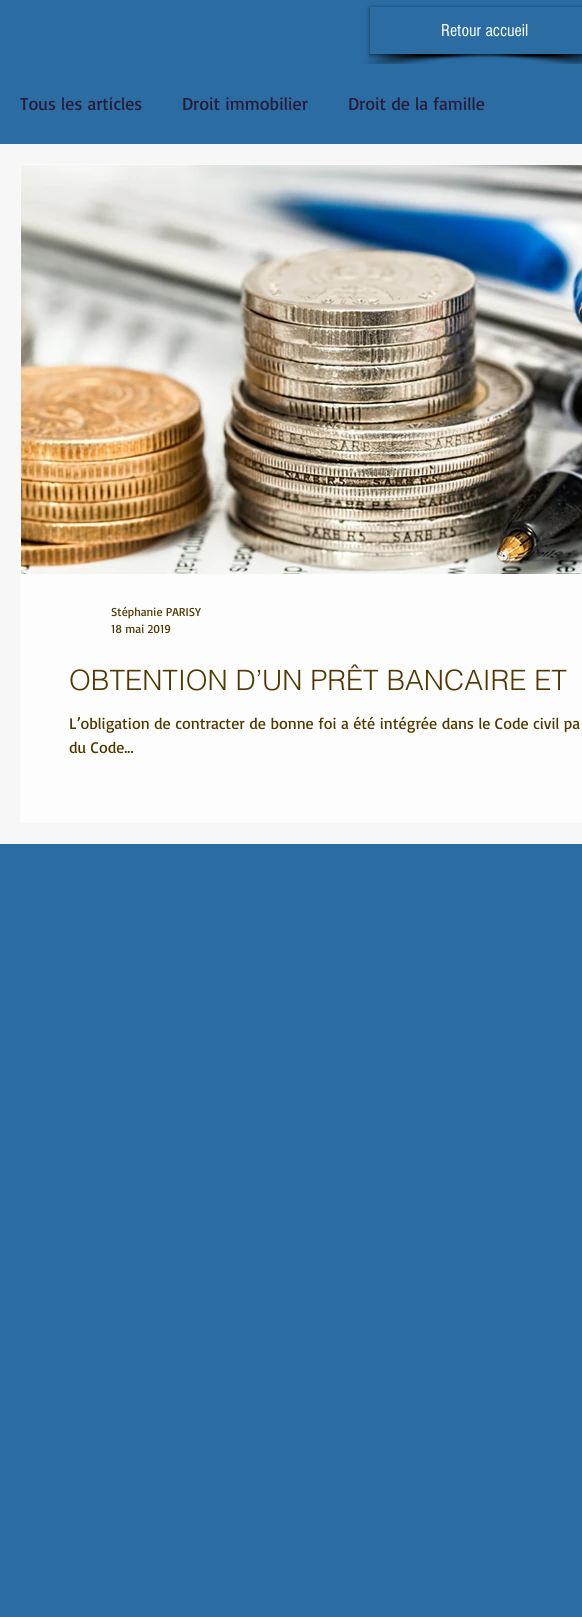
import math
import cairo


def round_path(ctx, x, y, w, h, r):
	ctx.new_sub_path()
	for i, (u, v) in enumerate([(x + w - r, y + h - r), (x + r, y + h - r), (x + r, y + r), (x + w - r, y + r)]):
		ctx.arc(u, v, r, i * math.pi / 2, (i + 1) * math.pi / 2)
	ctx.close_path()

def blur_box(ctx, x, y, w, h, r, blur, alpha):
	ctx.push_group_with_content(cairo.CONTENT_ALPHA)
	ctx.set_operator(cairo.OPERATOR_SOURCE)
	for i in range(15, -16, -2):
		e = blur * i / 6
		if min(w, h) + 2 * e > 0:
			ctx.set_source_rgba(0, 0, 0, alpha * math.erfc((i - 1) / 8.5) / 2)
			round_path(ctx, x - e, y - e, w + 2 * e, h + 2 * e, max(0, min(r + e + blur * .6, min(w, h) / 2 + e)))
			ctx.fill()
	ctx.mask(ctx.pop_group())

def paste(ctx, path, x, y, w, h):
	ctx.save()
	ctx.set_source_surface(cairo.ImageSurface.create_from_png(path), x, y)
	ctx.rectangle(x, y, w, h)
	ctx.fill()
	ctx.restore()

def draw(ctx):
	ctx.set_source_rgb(0.169, 0.424, 0.639)
	ctx.paint()
	paste(ctx, 'media/1.png', 362, 54, 148, 10)
	paste(ctx, 'media/2.png', 469, 54, 113, 10)
	ctx.save()
	ctx.set_fill_rule(cairo.FILL_RULE_EVEN_ODD)
	ctx.new_path()
	ctx.move_to(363, 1)
	ctx.line_to(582, 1)
	ctx.line_to(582, 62)
	ctx.line_to(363, 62)
	ctx.close_path()
	ctx.move_to(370, 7)
	ctx.line_to(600, 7)
	ctx.line_to(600, 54)
	ctx.line_to(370, 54)
	ctx.close_path()
	ctx.clip()
	ctx.set_source_rgb(0, 0, 0)
	blur_box(ctx, 370, 8, 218, 47, 0, 2, 0.6)
	ctx.restore()
	ctx.select_font_face('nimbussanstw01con')
	ctx.set_font_size(18)
	ctx.set_source_rgb(1, 1, 1)
	ctx.move_to(441, 36)
	ctx.show_text('Retour accueil')
	ctx.set_source_rgb(0.965, 0.965, 0.965)
	ctx.rectangle(0, 144, 582, 700)
	ctx.fill()
	ctx.select_font_face('Basic')
	ctx.set_source_rgb(0.157, 0.102, 0.224)
	for x, y, s in [
		(20, 110, 'Tous les articles'),
		(182, 110, 'Droit immobilier'),
		(348, 110, 'Droit de la famille'),
	]:
		ctx.move_to(x, y)
		ctx.show_text(s)
	ctx.rectangle(20.5, 164.5, 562, 658)
	ctx.set_source_rgb(0.988, 0.984, 0.984)
	ctx.set_line_width(1)
	ctx.stroke()
	paste(ctx, 'media/3.png', 21, 165, 561, 409)
	ctx.set_source_rgb(0.996, 0.992, 0.992)
	ctx.rectangle(21, 574, 561, 248)
	ctx.fill()
	ctx.set_font_size(12)
	ctx.set_source_rgb(0.31, 0.224, 0)
	ctx.move_to(111, 616)
	ctx.show_text('Stéphanie PARISY')
	ctx.move_to(111, 633)
	ctx.show_text('18 mai 2019')
	ctx.select_font_face('helvetica Light')
	ctx.set_font_size(28)
	ctx.move_to(69, 690)
	ctx.show_text('OBTENTION D’UN PRÊT BANCAIRE ET')
	ctx.select_font_face('Basic')
	ctx.set_font_size(16)
	ctx.move_to(69, 729)
	ctx.show_text('L’obligation de contracter de bonne foi a été intégrée dans le Code civil pa')
	ctx.move_to(69, 753)
	ctx.show_text('du Code...')


surface = cairo.ImageSurface(cairo.FORMAT_RGB24, 582, 1617)
ctx = cairo.Context(surface)
options = cairo.FontOptions()
options.set_hint_metrics(cairo.HINT_METRICS_OFF)
options.set_hint_style(cairo.HINT_STYLE_NONE)
ctx.set_font_options(options)
ctx.set_miter_limit(4)
draw(ctx)
surface.write_to_png('image.png')
